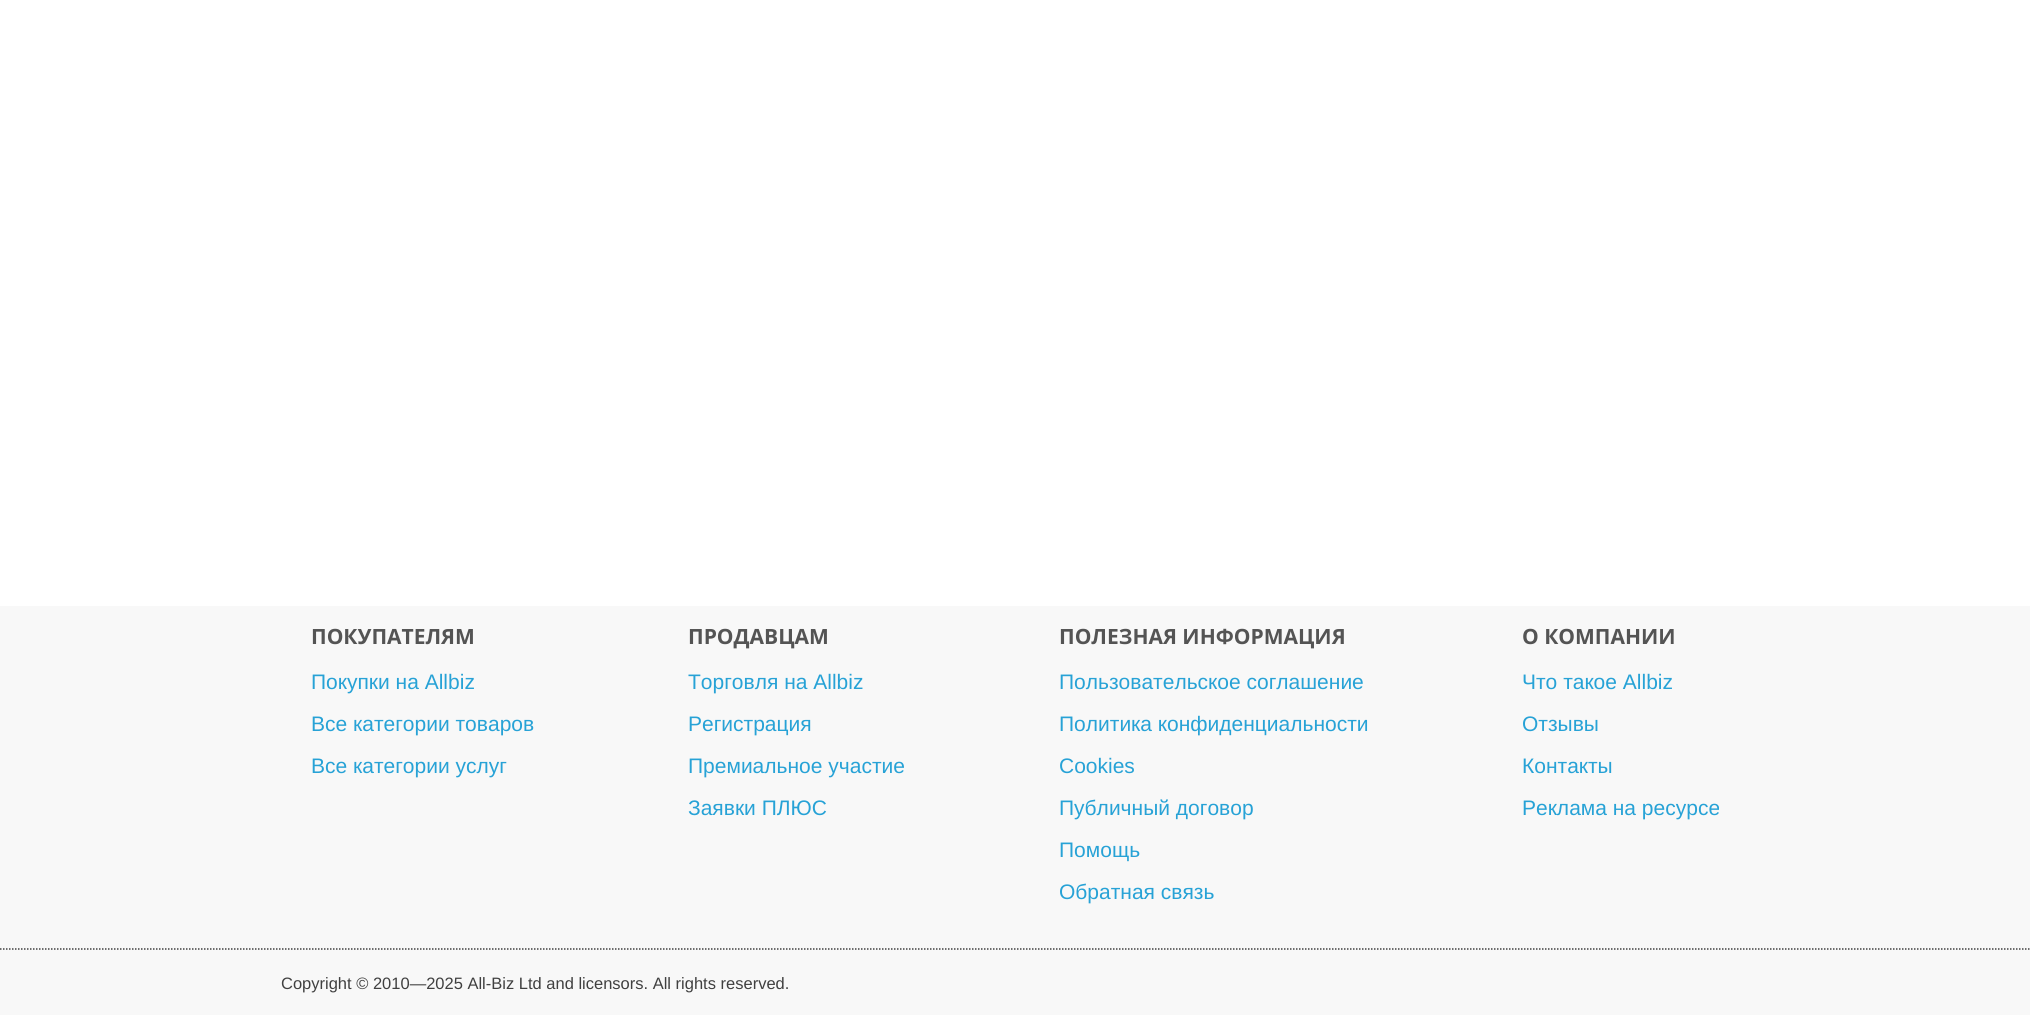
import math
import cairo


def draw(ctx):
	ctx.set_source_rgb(1, 1, 1)
	ctx.paint()
	ctx.set_source_rgb(0.969, 0.969, 0.969)
	ctx.rectangle(0, 606, 2030, 409)
	ctx.fill()
	ctx.select_font_face('Open Sans', cairo.FONT_SLANT_NORMAL, cairo.FONT_WEIGHT_BOLD)
	ctx.set_font_size(21)
	ctx.set_source_rgb(0.329, 0.329, 0.329)
	ctx.move_to(311, 644)
	ctx.show_text('ПОКУПАТЕЛЯМ')
	ctx.select_font_face('Liberation Sans')
	ctx.set_source_rgb(0.153, 0.635, 0.839)
	for x, y, s in [
		(311, 689, 'Покупки на Allbiz'),
		(311, 731, 'Все категории товаров'),
		(311, 773, 'Все категории услуг'),
	]:
		ctx.move_to(x, y)
		ctx.show_text(s)
	ctx.select_font_face('Open Sans', cairo.FONT_SLANT_NORMAL, cairo.FONT_WEIGHT_BOLD)
	ctx.set_source_rgb(0.329, 0.329, 0.329)
	ctx.move_to(688, 644)
	ctx.show_text('ПРОДАВЦАМ')
	ctx.select_font_face('Liberation Sans')
	ctx.set_source_rgb(0.153, 0.635, 0.839)
	for x, y, s in [
		(688, 689, 'Торговля на Allbiz'),
		(688, 731, 'Регистрация'),
		(688, 773, 'Премиальное участие'),
		(688, 815, 'Заявки ПЛЮС'),
	]:
		ctx.move_to(x, y)
		ctx.show_text(s)
	ctx.select_font_face('Open Sans', cairo.FONT_SLANT_NORMAL, cairo.FONT_WEIGHT_BOLD)
	ctx.set_source_rgb(0.329, 0.329, 0.329)
	ctx.move_to(1059, 644)
	ctx.show_text('ПОЛЕЗНАЯ ИНФОРМАЦИЯ')
	ctx.select_font_face('Liberation Sans')
	ctx.set_source_rgb(0.153, 0.635, 0.839)
	for x, y, s in [
		(1059, 689, 'Пользовательское соглашение'),
		(1059, 731, 'Политика конфиденциальности'),
		(1059, 773, 'Cookies'),
		(1059, 815, 'Публичный договор'),
		(1059, 857, 'Помощь'),
		(1059, 899, 'Обратная связь'),
	]:
		ctx.move_to(x, y)
		ctx.show_text(s)
	ctx.select_font_face('Open Sans', cairo.FONT_SLANT_NORMAL, cairo.FONT_WEIGHT_BOLD)
	ctx.set_source_rgb(0.329, 0.329, 0.329)
	ctx.move_to(1522, 644)
	ctx.show_text('О КОМПАНИИ')
	ctx.select_font_face('Liberation Sans')
	ctx.set_source_rgb(0.153, 0.635, 0.839)
	for x, y, s in [
		(1522, 689, 'Что такое Allbiz'),
		(1522, 731, 'Отзывы'),
		(1522, 773, 'Контакты'),
		(1522, 815, 'Реклама на ресурсе'),
	]:
		ctx.move_to(x, y)
		ctx.show_text(s)
	ctx.new_path()
	ctx.move_to(0, 949)
	ctx.line_to(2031, 949)
	ctx.set_source_rgb(0.251, 0.251, 0.251)
	ctx.set_line_width(1.5)
	ctx.set_dash([1.5, 1.5])
	ctx.stroke()
	ctx.set_font_size(16.5)
	ctx.move_to(281, 989)
	ctx.show_text('Copyright © 2010—2025 All-Biz Ltd and licensors. All rights reserved.')


surface = cairo.ImageSurface(cairo.FORMAT_RGB24, 2030, 1015)
ctx = cairo.Context(surface)
options = cairo.FontOptions()
options.set_hint_metrics(cairo.HINT_METRICS_OFF)
options.set_hint_style(cairo.HINT_STYLE_NONE)
ctx.set_font_options(options)
ctx.set_miter_limit(4)
draw(ctx)
surface.write_to_png('image.png')
